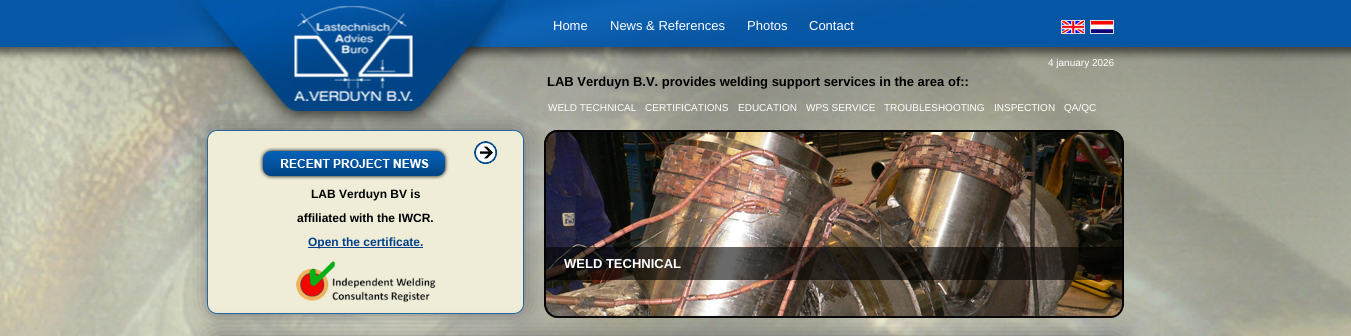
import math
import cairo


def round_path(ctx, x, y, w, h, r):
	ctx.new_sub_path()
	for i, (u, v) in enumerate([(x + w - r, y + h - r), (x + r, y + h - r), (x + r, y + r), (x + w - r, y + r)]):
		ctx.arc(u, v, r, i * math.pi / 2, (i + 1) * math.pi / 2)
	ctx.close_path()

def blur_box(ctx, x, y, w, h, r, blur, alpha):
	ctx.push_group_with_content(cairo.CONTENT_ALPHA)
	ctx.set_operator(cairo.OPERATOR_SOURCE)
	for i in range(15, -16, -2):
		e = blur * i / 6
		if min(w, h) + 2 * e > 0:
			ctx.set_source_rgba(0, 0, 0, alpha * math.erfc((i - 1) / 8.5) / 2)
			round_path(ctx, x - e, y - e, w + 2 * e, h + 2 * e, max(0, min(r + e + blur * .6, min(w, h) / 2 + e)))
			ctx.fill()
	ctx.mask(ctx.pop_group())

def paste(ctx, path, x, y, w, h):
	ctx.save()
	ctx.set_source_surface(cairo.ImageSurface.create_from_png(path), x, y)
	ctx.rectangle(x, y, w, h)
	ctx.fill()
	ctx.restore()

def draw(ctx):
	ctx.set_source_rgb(1, 1, 1)
	ctx.paint()
	paste(ctx, 'media/1.png', 0, 0, 1351, 336)
	ctx.select_font_face('Liberation Sans')
	ctx.set_font_size(13)
	ctx.set_source_rgb(1, 1, 1)
	for x, y, s in [
		(553, 30, 'Home'),
		(610, 30, 'News & References'),
		(747, 30, 'Photos'),
		(809, 30, 'Contact'),
	]:
		ctx.move_to(x, y)
		ctx.show_text(s)
	paste(ctx, 'media/2.png', 1061, 20, 24, 14)
	paste(ctx, 'media/3.png', 1090, 20, 24, 14)
	ctx.set_font_size(10)
	ctx.move_to(1048, 66)
	ctx.show_text('4 january 2026')
	ctx.select_font_face('Liberation Sans', cairo.FONT_SLANT_NORMAL, cairo.FONT_WEIGHT_BOLD)
	ctx.set_font_size(13)
	ctx.set_source_rgb(0, 0, 0)
	ctx.move_to(547, 86)
	ctx.show_text('LAB Verduyn B.V. provides welding support services in the area of::')
	ctx.set_source_rgb(0.431, 0.431, 0.431)
	blur_box(ctx, 207, 130, 317, 184, 10, 12.5, 1)
	ctx.set_source_rgb(0.937, 0.929, 0.847)
	round_path(ctx, 207.5, 130.5, 316, 183, 9.5)
	ctx.fill_preserve()
	ctx.set_source_rgb(0.141, 0.396, 0.631)
	ctx.set_line_width(1)
	ctx.stroke()
	paste(ctx, 'media/4.png', 259, 147, 190, 33)
	paste(ctx, 'media/5.png', 474, 141, 24, 24)
	ctx.set_font_size(12)
	ctx.set_source_rgb(0, 0, 0)
	ctx.move_to(311, 198)
	ctx.show_text('LAB Verduyn BV is')
	ctx.move_to(297, 222)
	ctx.show_text('affiliated with the IWCR.')
	ctx.set_source_rgb(0, 0.251, 0.533)
	ctx.rectangle(308, 247, 115, 1)
	ctx.fill()
	ctx.move_to(308, 246)
	ctx.show_text('Open the certificate.')
	paste(ctx, 'media/6.png', 296, 261, 140, 41)
	ctx.select_font_face('Liberation Sans')
	ctx.set_font_size(10)
	ctx.set_source_rgb(1, 1, 1)
	for x, y, s in [
		(548, 111, 'WELD TECHNICAL'),
		(645, 111, 'CERTIFICATIONS'),
		(738, 111, 'EDUCATION'),
		(806, 111, 'WPS SERVICE'),
		(884, 111, 'TROUBLESHOOTING'),
		(994, 111, 'INSPECTION'),
		(1064, 111, 'QA/QC'),
	]:
		ctx.move_to(x, y)
		ctx.show_text(s)
	paste(ctx, 'media/7.png', 544, 130, 580, 188)
	ctx.select_font_face('Liberation Sans', cairo.FONT_SLANT_NORMAL, cairo.FONT_WEIGHT_BOLD)
	ctx.set_font_size(13)
	ctx.move_to(564, 268)
	ctx.show_text('WELD TECHNICAL')
	ctx.set_source_rgb(0.431, 0.431, 0.431)
	blur_box(ctx, 207, 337, 919, 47, 10, 12.5, 1)


surface = cairo.ImageSurface(cairo.FORMAT_RGB24, 1351, 336)
ctx = cairo.Context(surface)
options = cairo.FontOptions()
options.set_hint_metrics(cairo.HINT_METRICS_OFF)
options.set_hint_style(cairo.HINT_STYLE_NONE)
ctx.set_font_options(options)
ctx.set_miter_limit(4)
draw(ctx)
surface.write_to_png('image.png')
